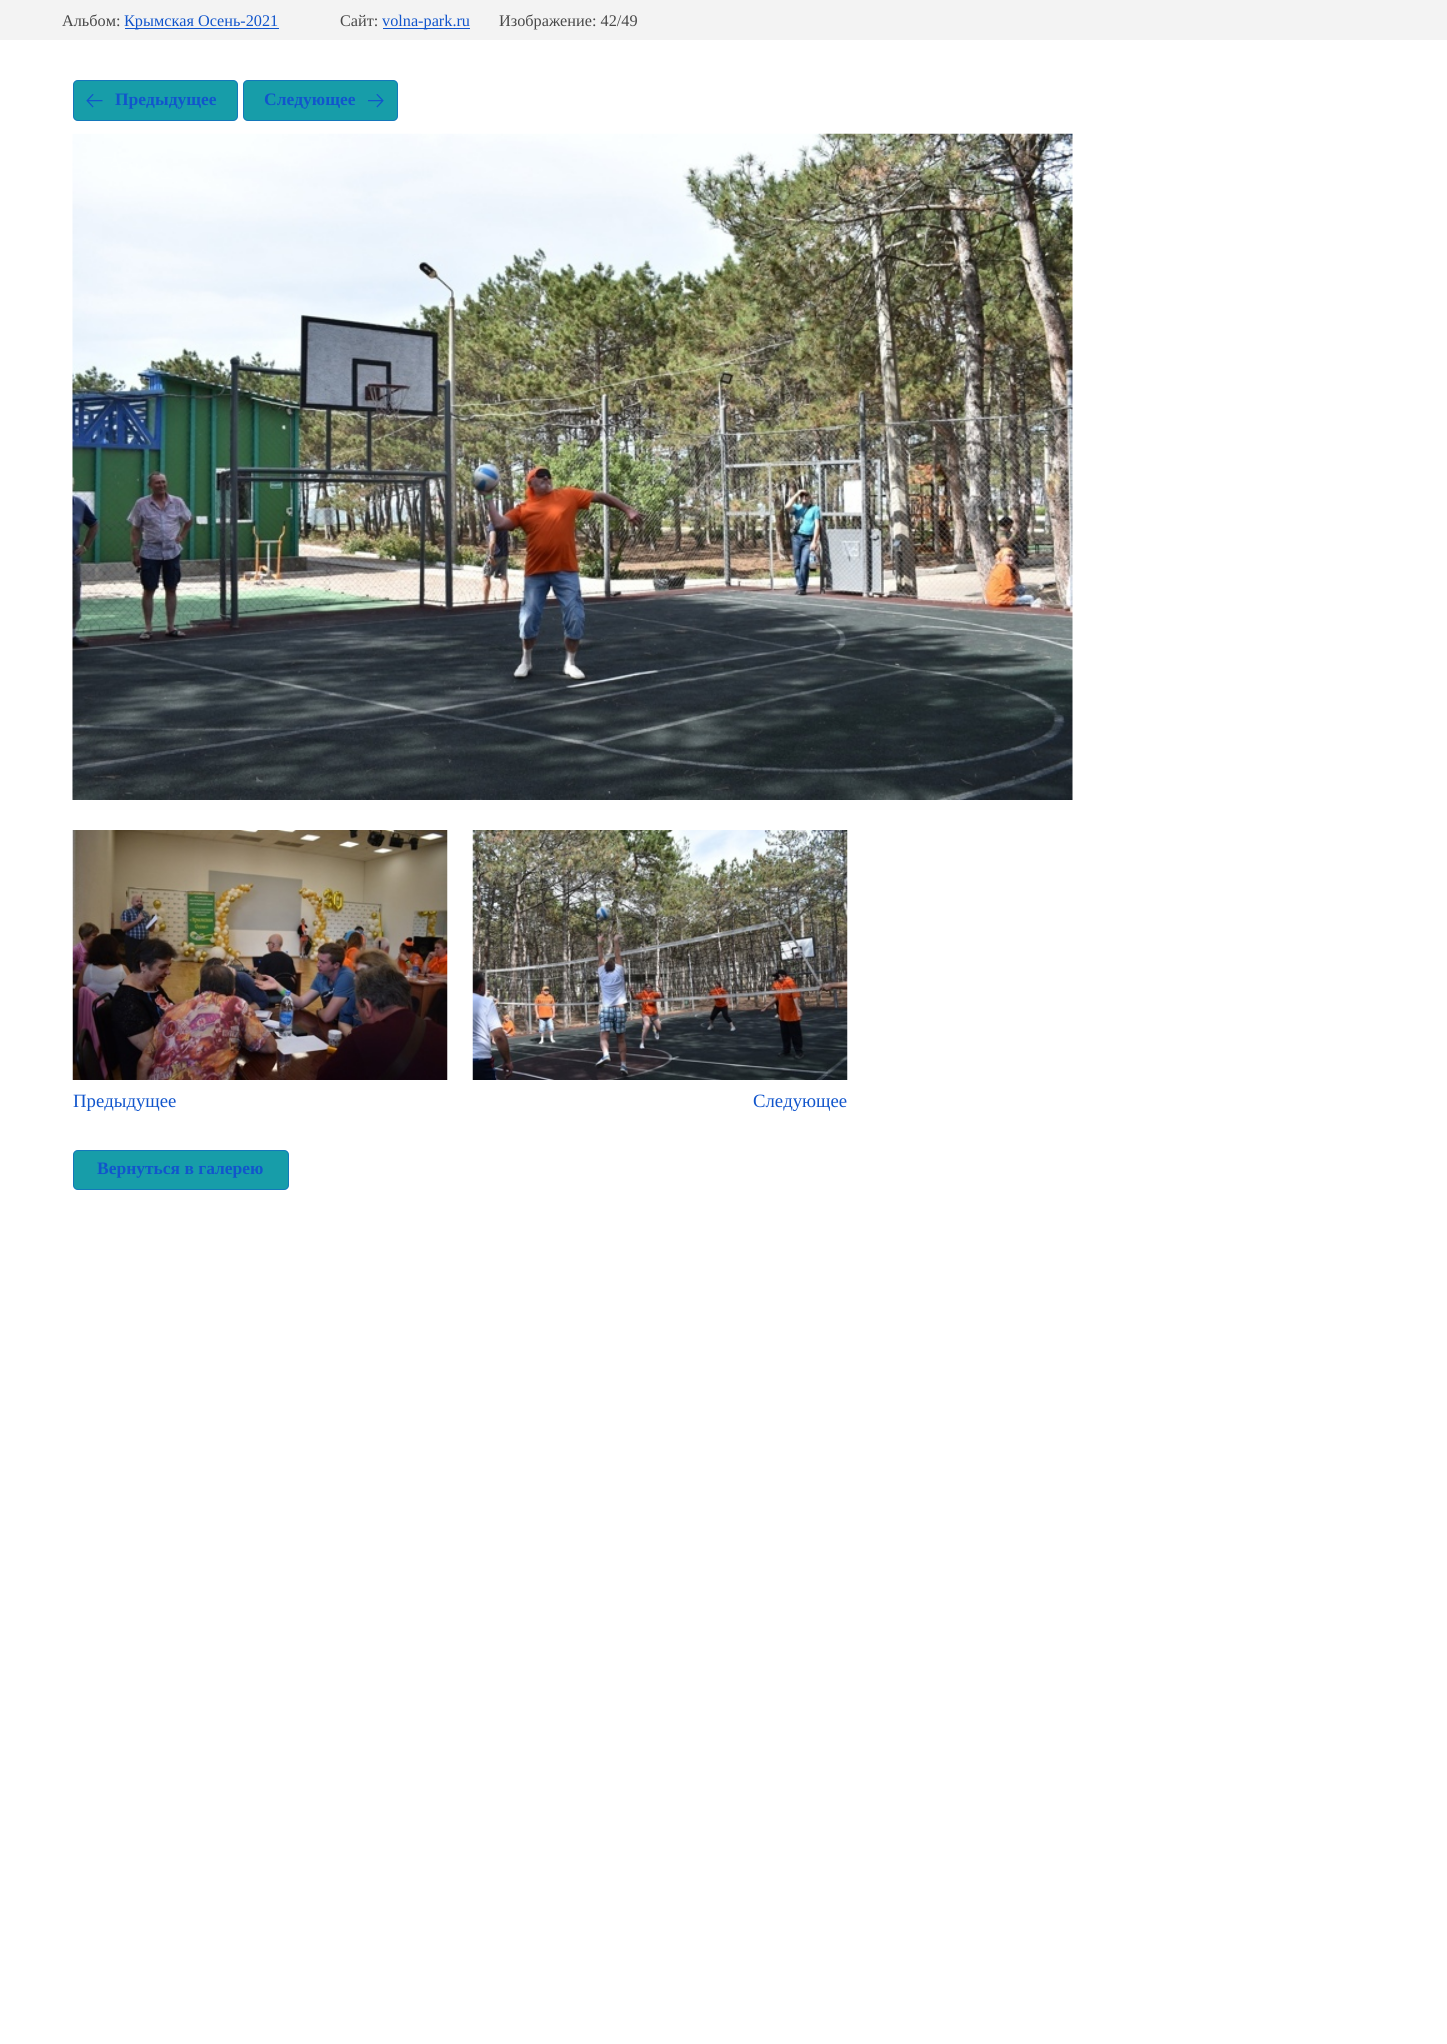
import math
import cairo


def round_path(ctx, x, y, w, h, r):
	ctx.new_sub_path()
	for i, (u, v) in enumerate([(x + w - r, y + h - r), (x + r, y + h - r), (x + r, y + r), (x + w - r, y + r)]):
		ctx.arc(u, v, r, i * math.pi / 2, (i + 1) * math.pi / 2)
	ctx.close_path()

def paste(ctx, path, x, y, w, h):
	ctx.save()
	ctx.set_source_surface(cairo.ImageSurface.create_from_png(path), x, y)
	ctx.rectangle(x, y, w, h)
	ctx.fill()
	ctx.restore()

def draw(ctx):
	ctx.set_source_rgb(1, 1, 1)
	ctx.paint()
	ctx.set_source_rgb(0.953, 0.953, 0.953)
	ctx.rectangle(0, 0, 1447, 40)
	ctx.fill()
	ctx.select_font_face('Liberation Serif')
	ctx.set_font_size(16.25)
	ctx.set_source_rgb(0.282, 0.282, 0.282)
	ctx.move_to(62, 26)
	ctx.show_text('Альбом:')
	ctx.set_source_rgb(0.067, 0.333, 0.8)
	ctx.rectangle(125, 28, 154, 1)
	ctx.fill()
	ctx.move_to(124, 26)
	ctx.show_text('Крымская Осень-2021')
	ctx.set_source_rgb(0.282, 0.282, 0.282)
	ctx.move_to(340, 26)
	ctx.show_text('Сайт:')
	ctx.set_source_rgb(0.067, 0.333, 0.8)
	ctx.rectangle(383, 28, 87, 1)
	ctx.fill()
	ctx.move_to(382, 26)
	ctx.show_text('volna-park.ru')
	ctx.set_source_rgb(0.282, 0.282, 0.282)
	ctx.move_to(499, 26)
	ctx.show_text('Изображение: 42/49')
	ctx.set_source_rgb(0.09, 0.616, 0.663)
	round_path(ctx, 73, 80, 165, 41, 5)
	ctx.fill()
	round_path(ctx, 73.5, 80.5, 164, 40, 4.5)
	ctx.set_source_rgba(0.067, 0.333, 0.8, 0.5)
	ctx.set_line_width(1)
	ctx.stroke()
	paste(ctx, 'media/1.png', 86, 94, 17, 14)
	ctx.select_font_face('Liberation Serif', cairo.FONT_SLANT_NORMAL, cairo.FONT_WEIGHT_BOLD)
	ctx.set_font_size(17.5)
	ctx.set_source_rgb(0.067, 0.333, 0.8)
	ctx.move_to(115, 105)
	ctx.show_text('Предыдущее')
	ctx.set_source_rgb(0.09, 0.616, 0.663)
	round_path(ctx, 243, 80, 155, 41, 5)
	ctx.fill()
	round_path(ctx, 243.5, 80.5, 154, 40, 4.5)
	ctx.set_source_rgba(0.067, 0.333, 0.8, 0.5)
	ctx.stroke()
	ctx.set_source_rgb(0.067, 0.333, 0.8)
	ctx.move_to(264, 105)
	ctx.show_text('Следующее')
	paste(ctx, 'media/2.png', 368, 94, 16, 14)
	paste(ctx, 'media/3.png', 72, 133, 1001, 667)
	paste(ctx, 'media/4.png', 72, 830, 376, 250)
	ctx.select_font_face('Liberation Serif')
	ctx.set_font_size(18.75)
	ctx.move_to(73, 1107)
	ctx.show_text('Предыдущее')
	paste(ctx, 'media/5.png', 472, 830, 376, 250)
	ctx.move_to(753, 1107)
	ctx.show_text('Следующее')
	ctx.set_source_rgb(0.09, 0.616, 0.663)
	round_path(ctx, 73, 1150, 216, 40, 5)
	ctx.fill()
	round_path(ctx, 73.5, 1150.5, 215, 39, 4.5)
	ctx.set_source_rgba(0.067, 0.333, 0.8, 0.5)
	ctx.stroke()
	ctx.select_font_face('Liberation Serif', cairo.FONT_SLANT_NORMAL, cairo.FONT_WEIGHT_BOLD)
	ctx.set_font_size(17.5)
	ctx.set_source_rgb(0.067, 0.333, 0.8)
	ctx.move_to(97, 1174)
	ctx.show_text('Вернуться в галерею')


surface = cairo.ImageSurface(cairo.FORMAT_RGB24, 1447, 2044)
ctx = cairo.Context(surface)
options = cairo.FontOptions()
options.set_hint_metrics(cairo.HINT_METRICS_OFF)
options.set_hint_style(cairo.HINT_STYLE_NONE)
ctx.set_font_options(options)
ctx.set_miter_limit(4)
draw(ctx)
surface.write_to_png('image.png')
